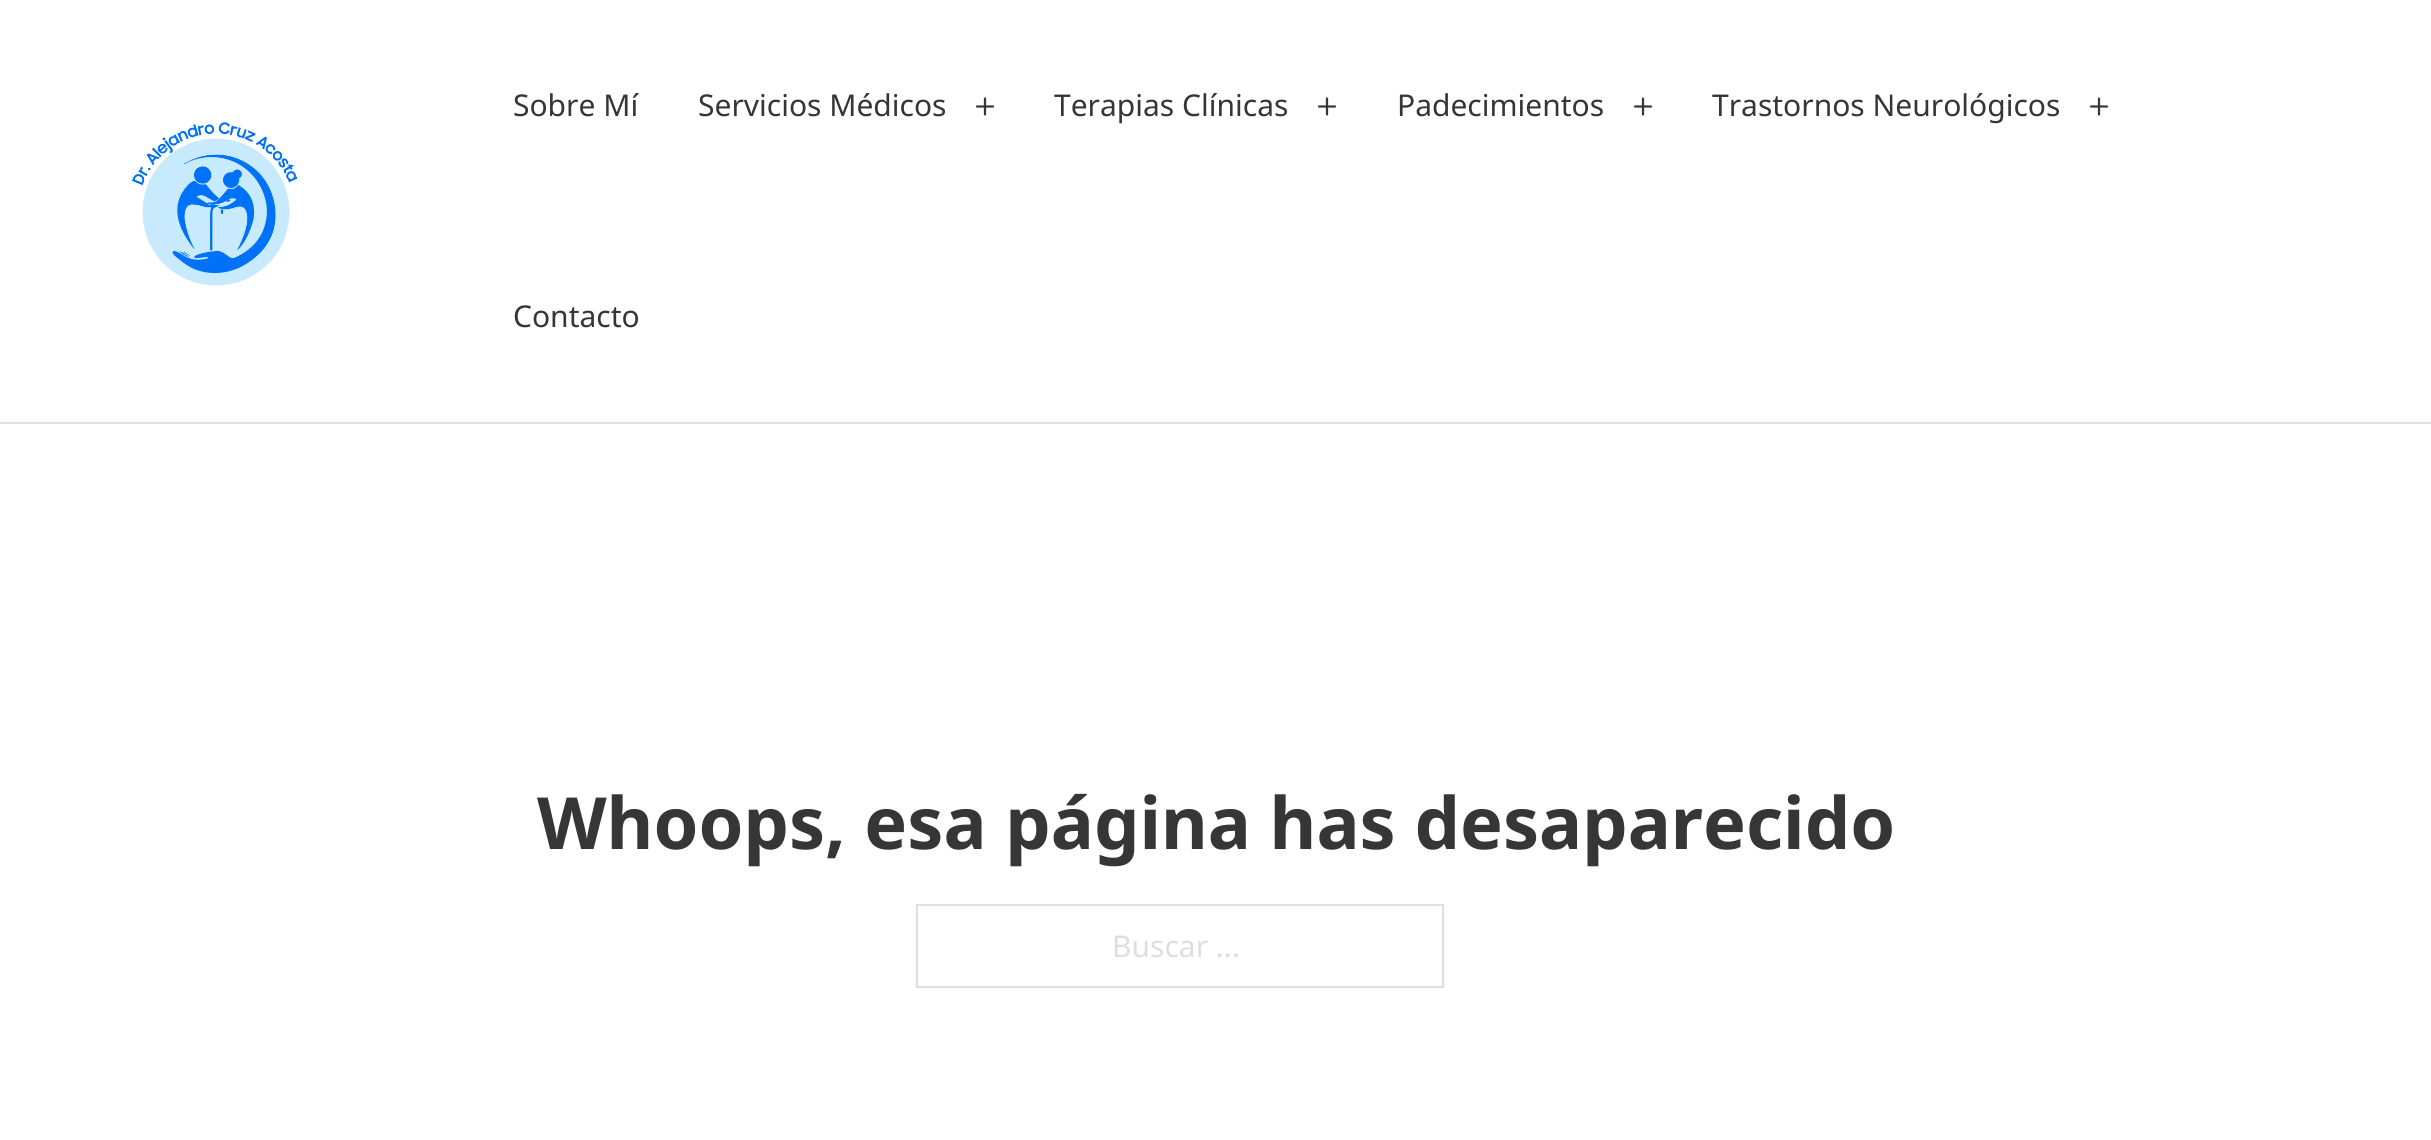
import math
import cairo


def paste(ctx, path, x, y, w, h):
	ctx.save()
	ctx.set_source_surface(cairo.ImageSurface.create_from_png(path), x, y)
	ctx.rectangle(x, y, w, h)
	ctx.fill()
	ctx.restore()

def draw(ctx):
	ctx.set_source_rgb(1, 1, 1)
	ctx.paint()
	ctx.set_source_rgb(0.878, 0.878, 0.878)
	ctx.rectangle(0, 422, 2431, 2)
	ctx.fill()
	paste(ctx, 'media/1.png', 131, 122, 167, 164)
	ctx.select_font_face('Noto Sans')
	ctx.set_font_size(30)
	ctx.set_source_rgb(0.212, 0.212, 0.212)
	ctx.move_to(513, 116)
	ctx.show_text('Sobre Mí')
	ctx.move_to(698, 116)
	ctx.show_text('Servicios Médicos')
	paste(ctx, 'media/2.png', 976, 97, 19, 19)
	ctx.move_to(1054, 116)
	ctx.show_text('Terapias Clínicas')
	paste(ctx, 'media/2.png', 1318, 97, 19, 19)
	ctx.move_to(1397, 116)
	ctx.show_text('Padecimientos')
	paste(ctx, 'media/2.png', 1634, 97, 19, 19)
	ctx.move_to(1712, 116)
	ctx.show_text('Trastornos Neurológicos')
	paste(ctx, 'media/2.png', 2090, 97, 19, 19)
	ctx.move_to(513, 327)
	ctx.show_text('Contacto')
	ctx.select_font_face('Noto Sans', cairo.FONT_SLANT_NORMAL, cairo.FONT_WEIGHT_BOLD)
	ctx.set_font_size(72)
	ctx.move_to(537, 849)
	ctx.show_text('Whoops, esa página has desaparecido')
	ctx.rectangle(917, 905, 526, 82)
	ctx.set_source_rgb(0.867, 0.871, 0.875)
	ctx.stroke()
	ctx.select_font_face('Noto Sans')
	ctx.set_font_size(30)
	ctx.move_to(1112, 957)
	ctx.show_text('Buscar ...')


surface = cairo.ImageSurface(cairo.FORMAT_RGB24, 2431, 1140)
ctx = cairo.Context(surface)
options = cairo.FontOptions()
options.set_hint_metrics(cairo.HINT_METRICS_OFF)
options.set_hint_style(cairo.HINT_STYLE_NONE)
ctx.set_font_options(options)
ctx.set_miter_limit(4)
draw(ctx)
surface.write_to_png('image.png')
